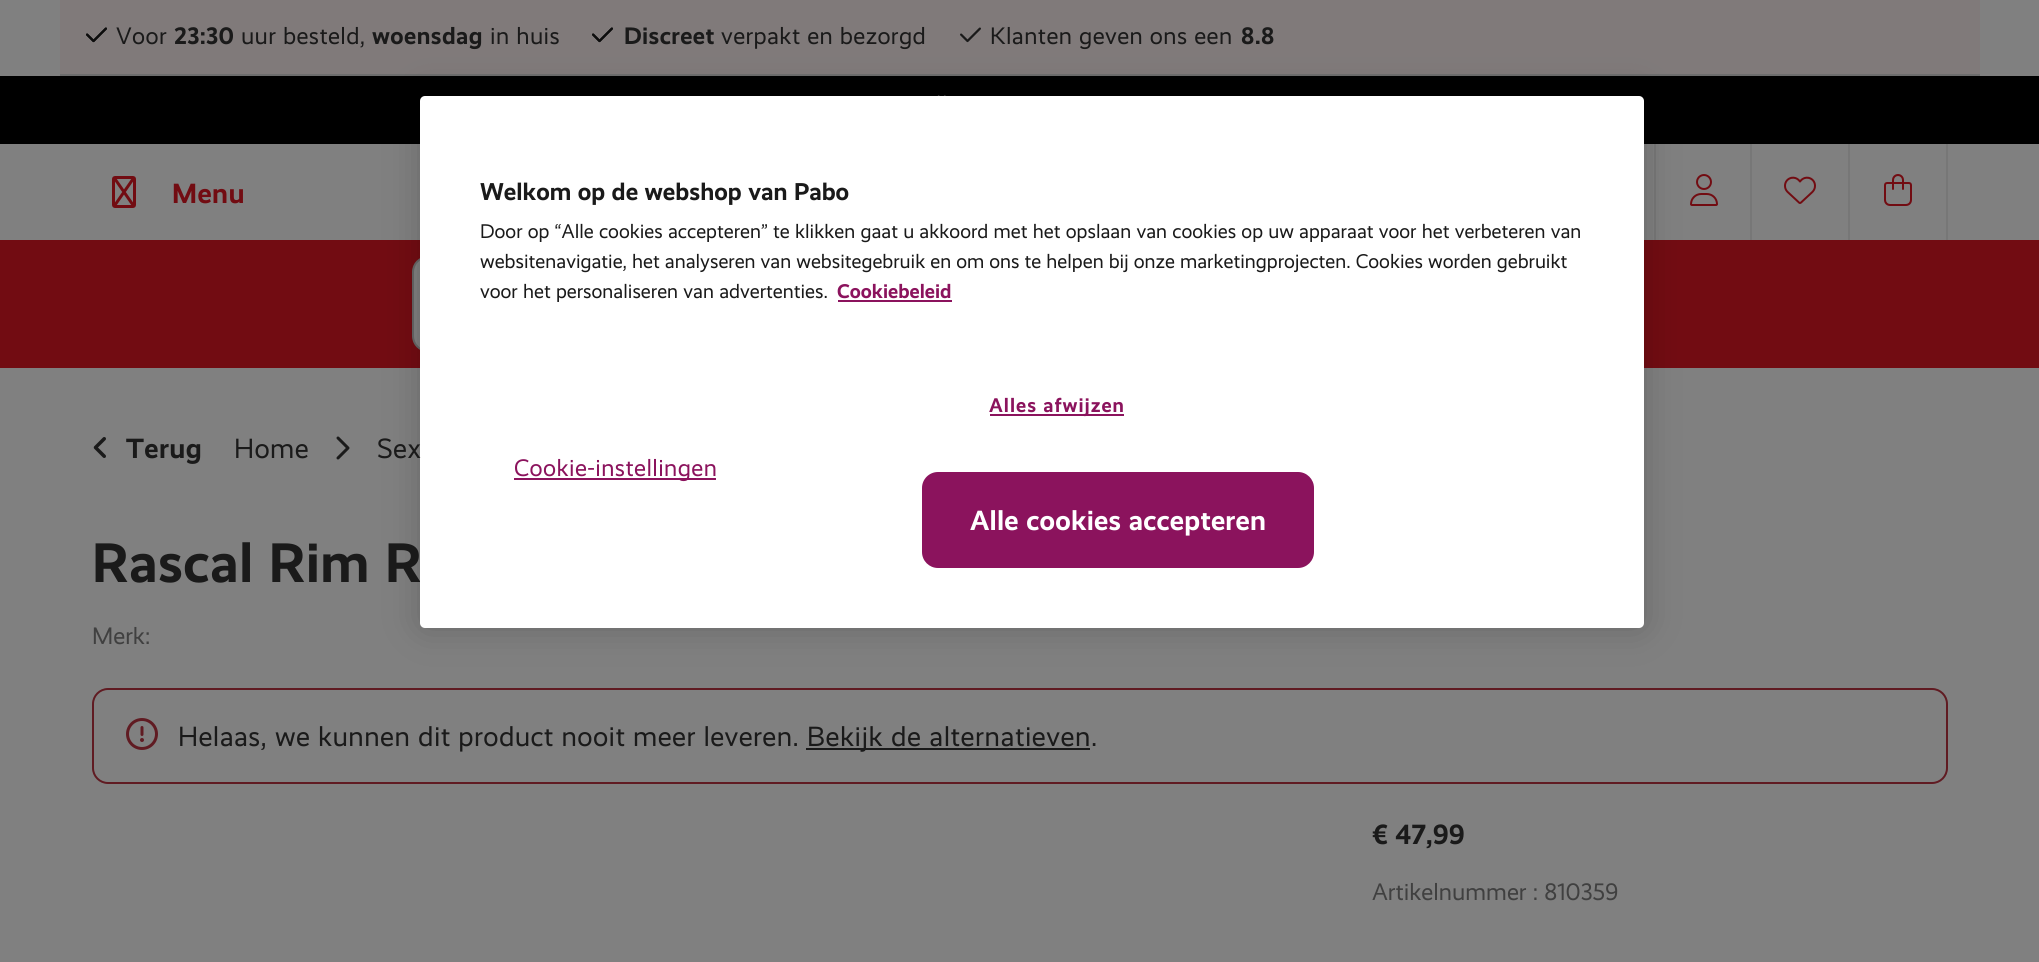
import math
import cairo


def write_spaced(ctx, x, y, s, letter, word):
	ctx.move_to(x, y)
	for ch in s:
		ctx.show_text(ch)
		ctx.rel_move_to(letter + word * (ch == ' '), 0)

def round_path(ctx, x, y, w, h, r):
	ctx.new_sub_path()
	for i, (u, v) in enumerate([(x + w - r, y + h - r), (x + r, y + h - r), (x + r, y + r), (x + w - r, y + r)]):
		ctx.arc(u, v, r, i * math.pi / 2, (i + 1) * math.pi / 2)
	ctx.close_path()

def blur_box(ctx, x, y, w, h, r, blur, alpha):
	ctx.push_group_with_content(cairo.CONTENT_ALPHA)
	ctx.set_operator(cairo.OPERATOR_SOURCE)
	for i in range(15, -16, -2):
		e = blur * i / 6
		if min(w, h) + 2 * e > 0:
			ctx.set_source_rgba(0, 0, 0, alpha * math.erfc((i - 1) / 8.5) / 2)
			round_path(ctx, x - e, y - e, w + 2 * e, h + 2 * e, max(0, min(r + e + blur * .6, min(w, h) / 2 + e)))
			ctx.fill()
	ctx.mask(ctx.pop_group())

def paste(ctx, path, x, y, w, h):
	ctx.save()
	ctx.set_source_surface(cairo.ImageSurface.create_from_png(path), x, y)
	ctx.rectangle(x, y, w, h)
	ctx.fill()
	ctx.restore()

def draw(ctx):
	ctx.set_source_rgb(0.502, 0.502, 0.502)
	ctx.paint()
	ctx.set_source_rgb(0.502, 0.478, 0.478)
	ctx.rectangle(60, 0, 1920, 74)
	ctx.fill()
	ctx.set_source_rgb(0.427, 0.427, 0.427)
	ctx.rectangle(60, 74, 1920, 2)
	ctx.fill()
	paste(ctx, 'media/1.png', 86, 27, 21, 16)
	ctx.select_font_face('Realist')
	ctx.set_font_size(24)
	ctx.set_source_rgb(0.102, 0.102, 0.102)
	write_spaced(ctx, 241, 44, 'uur besteld,', 0.4, 0)
	ctx.select_font_face('Realist', cairo.FONT_SLANT_NORMAL, cairo.FONT_WEIGHT_BOLD)
	write_spaced(ctx, 372, 44, 'woensdag', 0.4, 0)
	ctx.select_font_face('Realist')
	write_spaced(ctx, 490, 44, 'in huis', 0.4, 0)
	paste(ctx, 'media/2.png', 86, 27, 21, 16)
	write_spaced(ctx, 116, 44, 'Voor', 0.4, 0)
	ctx.select_font_face('Realist', cairo.FONT_SLANT_NORMAL, cairo.FONT_WEIGHT_BOLD)
	write_spaced(ctx, 174, 44, '23:30', 0.4, 0)
	paste(ctx, 'media/1.png', 592, 27, 21, 16)
	ctx.select_font_face('Realist')
	write_spaced(ctx, 721, 44, 'verpakt en bezorgd', 0.4, 0)
	paste(ctx, 'media/2.png', 592, 27, 21, 16)
	ctx.select_font_face('Realist', cairo.FONT_SLANT_NORMAL, cairo.FONT_WEIGHT_BOLD)
	write_spaced(ctx, 624, 44, 'Discreet', 0.4, 0)
	paste(ctx, 'media/1.png', 960, 27, 21, 16)
	ctx.select_font_face('Realist')
	write_spaced(ctx, 990, 44, 'Klanten geven ons een', 0.4, 0)
	ctx.select_font_face('Realist', cairo.FONT_SLANT_NORMAL, cairo.FONT_WEIGHT_BOLD)
	write_spaced(ctx, 1241, 44, '8.8', 0.4, 0)
	ctx.set_source_rgb(0, 0, 0)
	ctx.rectangle(0, 76, 2039, 68)
	ctx.fill()
	paste(ctx, 'media/3.png', 937, 95, 9, 1)
	paste(ctx, 'media/4.png', 112, 176, 24, 32)
	ctx.set_font_size(28)
	ctx.set_source_rgb(0.447, 0.047, 0.071)
	write_spaced(ctx, 172, 203, 'Menu', 0.4, 0)
	ctx.set_source_rgb(0.467, 0.467, 0.467)
	ctx.rectangle(1654, 144, 2, 96)
	ctx.fill()
	paste(ctx, 'media/5.png', 1690, 174, 28, 32)
	ctx.rectangle(1750, 144, 2, 96)
	ctx.fill()
	paste(ctx, 'media/6.png', 1784, 176, 32, 28)
	ctx.rectangle(1946, 144, 2, 96)
	ctx.fill()
	ctx.rectangle(1848, 144, 2, 96)
	ctx.fill()
	paste(ctx, 'media/7.png', 1884, 174, 28, 32)
	ctx.set_source_rgb(0.447, 0.047, 0.071)
	ctx.rectangle(0, 240, 2039, 128)
	ctx.fill()
	ctx.set_source_rgb(0.502, 0.502, 0.502)
	round_path(ctx, 413, 257, 1214, 94, 15)
	ctx.fill_preserve()
	ctx.set_source_rgb(0.4, 0.4, 0.4)
	ctx.stroke()
	ctx.set_source_rgb(0, 0, 0)
	blur_box(ctx, 420, 96, 1224, 532, 5, 18, 0.2)
	ctx.set_font_size(56)
	ctx.set_source_rgb(0.102, 0.102, 0.102)
	write_spaced(ctx, 92, 582, 'Rascal Rim R', 0.4, 0)
	ctx.set_source_rgb(1, 1, 1)
	round_path(ctx, 420, 96, 1224, 532, 5)
	ctx.fill()
	ctx.set_font_size(24.5)
	ctx.set_source_rgb(0.102, 0.102, 0.102)
	ctx.move_to(480, 200)
	ctx.show_text('Welkom op de webshop van Pabo')
	ctx.select_font_face('Realist')
	ctx.set_font_size(19.92)
	ctx.move_to(480, 238)
	ctx.show_text('Door op “Alle cookies accepteren” te klikken gaat u akkoord met het opslaan van cookies op uw apparaat voor het verbeteren van')
	write_spaced(ctx, 480, 268, 'websitenavigatie, het analyseren van websitegebruik en om ons te helpen bij onze marketingprojecten. Cookies worden gebruikt', 0, -0.2)
	ctx.move_to(480, 298)
	ctx.show_text('voor het personaliseren van advertenties.')
	ctx.select_font_face('Realist', cairo.FONT_SLANT_NORMAL, cairo.FONT_WEIGHT_BOLD)
	ctx.set_source_rgb(0.545, 0.078, 0.365)
	ctx.move_to(837, 298)
	ctx.show_text('Cookiebeleid')
	ctx.rectangle(838, 300, 114, 2)
	ctx.fill()
	ctx.rectangle(514, 478, 202, 2)
	ctx.fill()
	ctx.select_font_face('Realist')
	ctx.set_font_size(24)
	write_spaced(ctx, 514, 476, 'Cookie-instellingen', 0.4, 0)
	ctx.rectangle(990, 414, 134, 2)
	ctx.fill()
	ctx.select_font_face('Realist', cairo.FONT_SLANT_NORMAL, cairo.FONT_WEIGHT_BOLD)
	ctx.set_font_size(19.92)
	write_spaced(ctx, 989, 412, 'Alles afwijzen', 1, 0)
	round_path(ctx, 922, 472, 392, 96, 16)
	ctx.fill()
	ctx.set_font_size(28)
	ctx.set_source_rgb(1, 1, 1)
	write_spaced(ctx, 970, 530, 'Alle cookies accepteren', 0.2, 0)
	paste(ctx, 'media/8.png', 93, 437, 13, 21)
	ctx.set_source_rgb(0.102, 0.102, 0.102)
	write_spaced(ctx, 126, 458, 'Terug', 0.4, 0)
	ctx.select_font_face('Realist')
	write_spaced(ctx, 234, 458, 'Home', 0.4, 0)
	paste(ctx, 'media/9.png', 336, 436, 14, 24)
	write_spaced(ctx, 377, 458, 'Sex', 0.4, 0)
	ctx.set_font_size(24)
	ctx.set_source_rgb(0.251, 0.251, 0.251)
	ctx.move_to(92, 644)
	ctx.show_text('Merk:')
	round_path(ctx, 93, 689, 1854, 94, 15)
	ctx.set_source_rgb(0.376, 0.106, 0.133)
	ctx.stroke()
	paste(ctx, 'media/10.png', 126, 718, 32, 32)
	ctx.set_font_size(28)
	ctx.set_source_rgb(0.102, 0.102, 0.102)
	write_spaced(ctx, 178, 746, 'Helaas, we kunnen dit product nooit meer leveren.', 0.4, 0)
	ctx.rectangle(806, 748, 284, 2)
	ctx.fill()
	write_spaced(ctx, 807, 746, 'Bekijk de alternatieven', 0.5, 0)
	write_spaced(ctx, 1091, 746, '.', 0.4, 0)
	ctx.select_font_face('Realist', cairo.FONT_SLANT_NORMAL, cairo.FONT_WEIGHT_BOLD)
	ctx.move_to(1372, 844)
	ctx.show_text('€ 47,99')
	ctx.select_font_face('Realist')
	ctx.set_font_size(24)
	ctx.set_source_rgb(0.251, 0.251, 0.251)
	ctx.move_to(1372, 900)
	ctx.show_text('Artikelnummer : 810359')


surface = cairo.ImageSurface(cairo.FORMAT_RGB24, 2039, 962)
ctx = cairo.Context(surface)
options = cairo.FontOptions()
options.set_hint_metrics(cairo.HINT_METRICS_OFF)
options.set_hint_style(cairo.HINT_STYLE_NONE)
ctx.set_font_options(options)
ctx.set_miter_limit(4)
draw(ctx)
surface.write_to_png('image.png')
